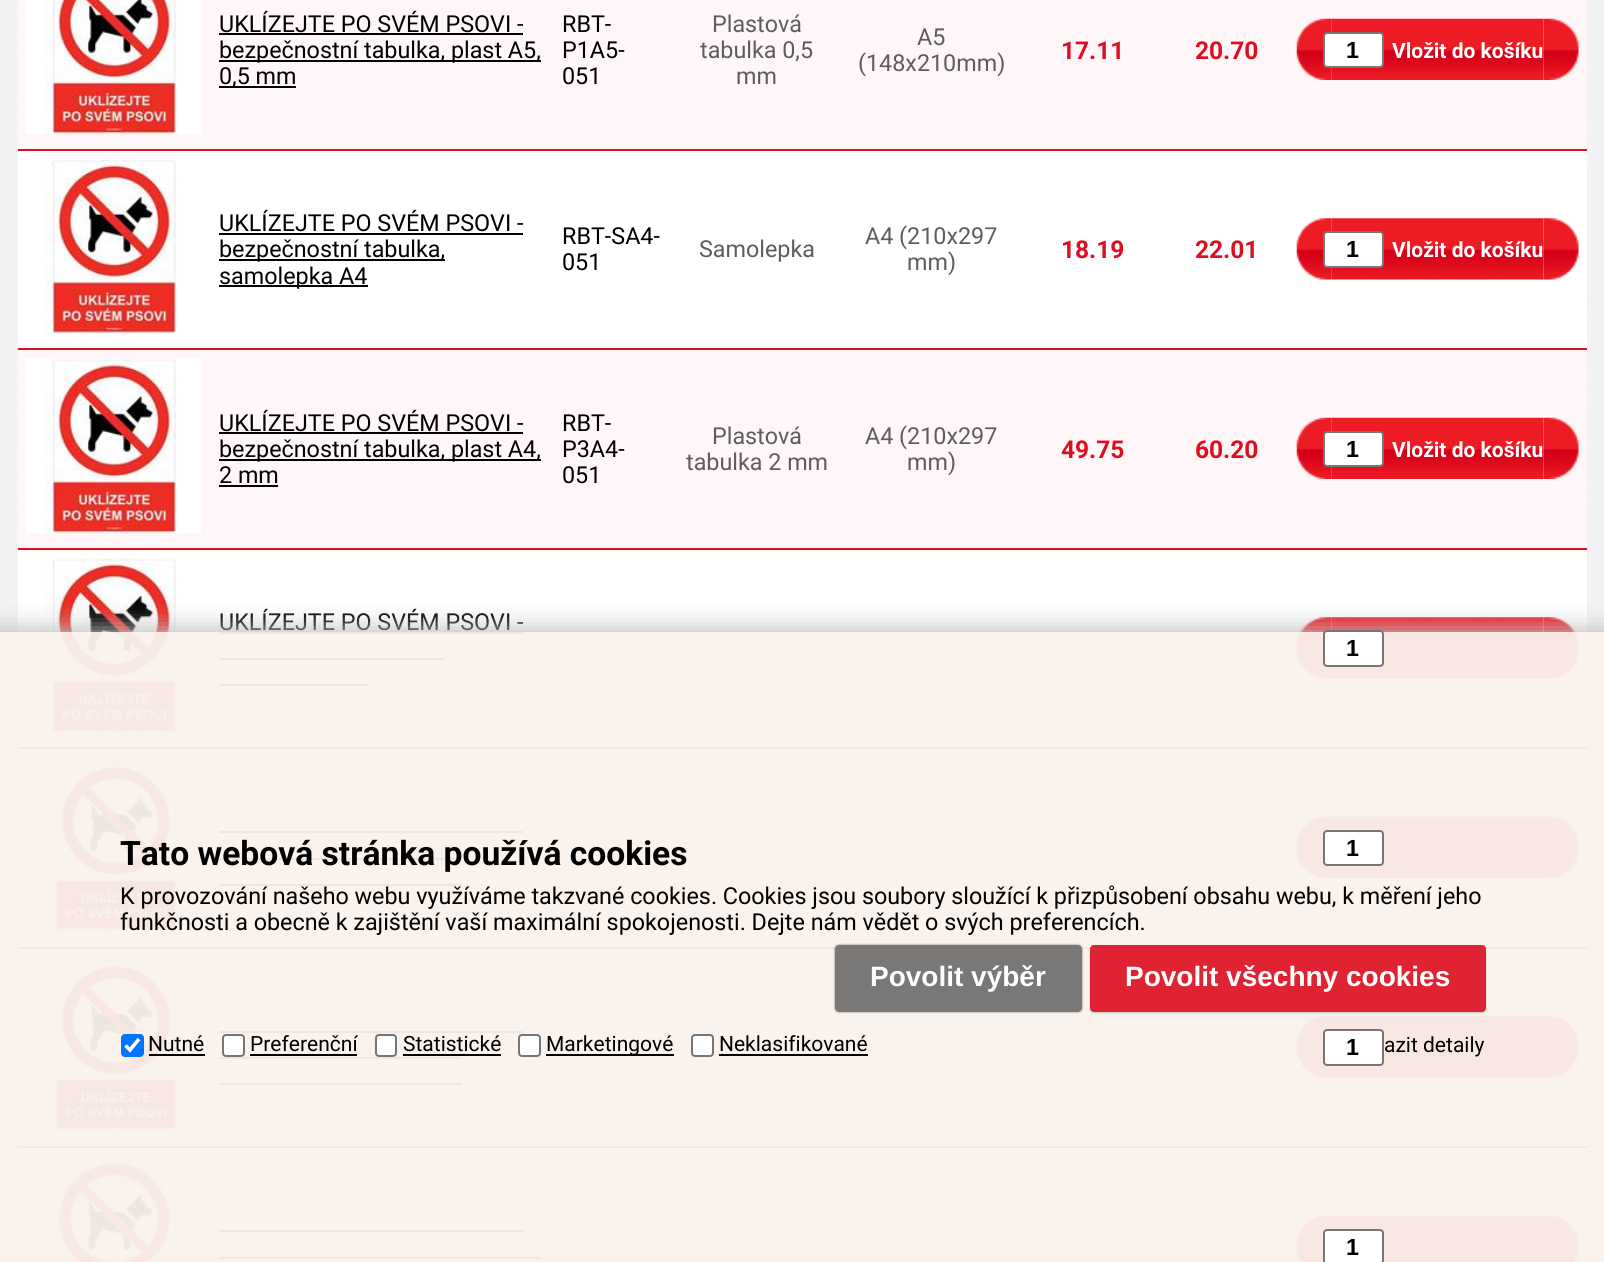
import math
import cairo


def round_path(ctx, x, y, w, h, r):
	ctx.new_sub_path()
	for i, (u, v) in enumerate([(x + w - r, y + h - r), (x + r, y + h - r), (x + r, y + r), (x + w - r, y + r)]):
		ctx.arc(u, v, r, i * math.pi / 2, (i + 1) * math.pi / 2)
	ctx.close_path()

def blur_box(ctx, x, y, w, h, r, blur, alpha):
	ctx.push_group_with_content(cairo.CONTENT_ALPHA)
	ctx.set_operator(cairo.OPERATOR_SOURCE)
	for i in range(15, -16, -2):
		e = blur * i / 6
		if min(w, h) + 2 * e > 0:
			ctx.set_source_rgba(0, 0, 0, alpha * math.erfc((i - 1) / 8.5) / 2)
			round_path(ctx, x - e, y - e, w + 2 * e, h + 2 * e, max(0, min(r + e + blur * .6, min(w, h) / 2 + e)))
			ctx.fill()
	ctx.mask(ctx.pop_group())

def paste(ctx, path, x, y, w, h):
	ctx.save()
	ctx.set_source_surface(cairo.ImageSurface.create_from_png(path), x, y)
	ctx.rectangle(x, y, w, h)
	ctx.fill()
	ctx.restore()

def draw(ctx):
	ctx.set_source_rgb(1, 1, 1)
	ctx.paint()
	paste(ctx, 'media/1.png', 0, 0, 1604, 1262)
	ctx.set_source_rgb(1, 1, 1)
	ctx.rectangle(18, 151, 1569, 995)
	ctx.fill()
	ctx.set_source_rgb(1, 0.961, 0.965)
	ctx.rectangle(18, 0, 1569, 149)
	ctx.fill()
	ctx.set_source_rgb(0.871, 0.051, 0.122)
	ctx.rectangle(18, 149, 1569, 2)
	ctx.fill()
	paste(ctx, 'media/2.png', 26, 0, 175, 135)
	ctx.select_font_face('Roboto')
	ctx.set_font_size(23.33)
	ctx.set_source_rgb(0, 0, 0)
	ctx.move_to(219, 32)
	ctx.show_text('UKLÍZEJTE PO SVÉM PSOVI -')
	ctx.rectangle(219, 33, 304, 2)
	ctx.fill()
	ctx.rectangle(219, 60, 322, 2)
	ctx.fill()
	ctx.move_to(219, 58)
	ctx.show_text('bezpečnostní tabulka, plast A5,')
	ctx.rectangle(219, 86, 77, 2)
	ctx.fill()
	for x, y, s in [
		(219, 84, '0,5 mm'),
		(562, 32, 'RBT-'),
		(562, 58, 'P1A5-'),
		(562, 84, '051'),
	]:
		ctx.move_to(x, y)
		ctx.show_text(s)
	ctx.set_source_rgb(0.365, 0.365, 0.365)
	for x, y, s in [
		(712, 32, 'Plastová'),
		(700, 58, 'tabulka 0,5'),
		(736, 84, 'mm'),
		(917, 45, 'A5'),
		(858, 71, '(148x210mm)'),
	]:
		ctx.move_to(x, y)
		ctx.show_text(s)
	ctx.select_font_face('Roboto', cairo.FONT_SLANT_NORMAL, cairo.FONT_WEIGHT_BOLD)
	ctx.set_font_size(24.5)
	ctx.set_source_rgb(0.871, 0.051, 0.122)
	ctx.move_to(1061, 59)
	ctx.show_text('17.11')
	ctx.move_to(1195, 59)
	ctx.show_text('20.70')
	paste(ctx, 'media/4.png', 1331, 18, 213, 62)
	paste(ctx, 'media/3.png', 1296, 18, 36, 62)
	ctx.set_source_rgb(1, 1, 1)
	round_path(ctx, 1324, 33, 59, 34, 3)
	ctx.fill_preserve()
	ctx.set_source_rgb(0.463, 0.463, 0.463)
	ctx.stroke()
	ctx.select_font_face('Liberation Sans', cairo.FONT_SLANT_NORMAL, cairo.FONT_WEIGHT_BOLD)
	ctx.set_font_size(23.33)
	ctx.set_source_rgb(0, 0, 0)
	ctx.move_to(1346, 58)
	ctx.show_text('1')
	ctx.select_font_face('Roboto', cairo.FONT_SLANT_NORMAL, cairo.FONT_WEIGHT_BOLD)
	ctx.set_font_size(21)
	ctx.set_source_rgb(1, 1, 1)
	ctx.move_to(1392, 58)
	ctx.show_text('Vložit do košíku')
	paste(ctx, 'media/5.png', 1543, 18, 36, 62)
	ctx.set_source_rgb(0.871, 0.051, 0.122)
	ctx.rectangle(18, 348, 1569, 2)
	ctx.fill()
	paste(ctx, 'media/6.png', 45, 159, 132, 175)
	ctx.select_font_face('Roboto')
	ctx.set_font_size(23.33)
	ctx.set_source_rgb(0, 0, 0)
	ctx.move_to(219, 231)
	ctx.show_text('UKLÍZEJTE PO SVÉM PSOVI -')
	ctx.rectangle(219, 233, 304, 2)
	ctx.fill()
	ctx.rectangle(219, 259, 226, 2)
	ctx.fill()
	ctx.move_to(219, 257)
	ctx.show_text('bezpečnostní tabulka,')
	ctx.rectangle(219, 285, 149, 2)
	ctx.fill()
	for x, y, s in [
		(219, 284, 'samolepka A4'),
		(562, 244, 'RBT-SA4-'),
		(562, 270, '051'),
	]:
		ctx.move_to(x, y)
		ctx.show_text(s)
	ctx.set_source_rgb(0.365, 0.365, 0.365)
	for x, y, s in [
		(699, 257, 'Samolepka'),
		(865, 244, 'A4 (210x297'),
		(907, 270, 'mm)'),
	]:
		ctx.move_to(x, y)
		ctx.show_text(s)
	ctx.select_font_face('Roboto', cairo.FONT_SLANT_NORMAL, cairo.FONT_WEIGHT_BOLD)
	ctx.set_font_size(24.5)
	ctx.set_source_rgb(0.871, 0.051, 0.122)
	ctx.move_to(1061, 258)
	ctx.show_text('18.19')
	ctx.move_to(1195, 258)
	ctx.show_text('22.01')
	paste(ctx, 'media/8.png', 1331, 218, 213, 62)
	paste(ctx, 'media/7.png', 1296, 218, 36, 62)
	ctx.set_source_rgb(1, 1, 1)
	round_path(ctx, 1324, 232, 59, 35, 3)
	ctx.fill_preserve()
	ctx.set_source_rgb(0.463, 0.463, 0.463)
	ctx.stroke()
	ctx.select_font_face('Liberation Sans', cairo.FONT_SLANT_NORMAL, cairo.FONT_WEIGHT_BOLD)
	ctx.set_font_size(23.33)
	ctx.set_source_rgb(0, 0, 0)
	ctx.move_to(1346, 257)
	ctx.show_text('1')
	ctx.select_font_face('Roboto', cairo.FONT_SLANT_NORMAL, cairo.FONT_WEIGHT_BOLD)
	ctx.set_font_size(21)
	ctx.set_source_rgb(1, 1, 1)
	ctx.move_to(1392, 257)
	ctx.show_text('Vložit do košíku')
	paste(ctx, 'media/9.png', 1543, 218, 36, 62)
	ctx.set_source_rgb(1, 0.961, 0.965)
	ctx.rectangle(18, 350, 1569, 198)
	ctx.fill()
	ctx.set_source_rgb(0.871, 0.051, 0.122)
	ctx.rectangle(18, 548, 1569, 2)
	ctx.fill()
	paste(ctx, 'media/10.png', 26, 358, 175, 176)
	ctx.select_font_face('Roboto')
	ctx.set_font_size(23.33)
	ctx.set_source_rgb(0, 0, 0)
	ctx.move_to(219, 431)
	ctx.show_text('UKLÍZEJTE PO SVÉM PSOVI -')
	ctx.rectangle(219, 432, 304, 2)
	ctx.fill()
	ctx.rectangle(219, 459, 322, 2)
	ctx.fill()
	ctx.move_to(219, 457)
	ctx.show_text('bezpečnostní tabulka, plast A4,')
	ctx.move_to(219, 483)
	ctx.show_text('2 mm')
	ctx.rectangle(219, 485, 59, 2)
	ctx.fill()
	for x, y, s in [
		(562, 431, 'RBT-'),
		(562, 457, 'P3A4-'),
		(562, 483, '051'),
	]:
		ctx.move_to(x, y)
		ctx.show_text(s)
	ctx.set_source_rgb(0.365, 0.365, 0.365)
	for x, y, s in [
		(712, 444, 'Plastová'),
		(686, 470, 'tabulka 2 mm'),
		(865, 444, 'A4 (210x297'),
		(907, 470, 'mm)'),
	]:
		ctx.move_to(x, y)
		ctx.show_text(s)
	ctx.select_font_face('Roboto', cairo.FONT_SLANT_NORMAL, cairo.FONT_WEIGHT_BOLD)
	ctx.set_font_size(24.5)
	ctx.set_source_rgb(0.871, 0.051, 0.122)
	ctx.move_to(1061, 458)
	ctx.show_text('49.75')
	ctx.move_to(1195, 458)
	ctx.show_text('60.20')
	paste(ctx, 'media/11.png', 1331, 417, 213, 62)
	paste(ctx, 'media/3.png', 1296, 417, 36, 62)
	ctx.set_source_rgb(1, 1, 1)
	round_path(ctx, 1324, 432, 59, 34, 3)
	ctx.fill_preserve()
	ctx.set_source_rgb(0.463, 0.463, 0.463)
	ctx.stroke()
	ctx.select_font_face('Liberation Sans', cairo.FONT_SLANT_NORMAL, cairo.FONT_WEIGHT_BOLD)
	ctx.set_font_size(23.33)
	ctx.set_source_rgb(0, 0, 0)
	ctx.move_to(1346, 457)
	ctx.show_text('1')
	ctx.select_font_face('Roboto', cairo.FONT_SLANT_NORMAL, cairo.FONT_WEIGHT_BOLD)
	ctx.set_font_size(21)
	ctx.set_source_rgb(1, 1, 1)
	ctx.move_to(1392, 457)
	ctx.show_text('Vložit do košíku')
	paste(ctx, 'media/5.png', 1543, 417, 36, 62)
	ctx.set_source_rgb(0.871, 0.051, 0.122)
	ctx.rectangle(18, 747, 1569, 2)
	ctx.fill()
	paste(ctx, 'media/12.png', 45, 558, 132, 175)
	ctx.select_font_face('Roboto')
	ctx.set_font_size(23.33)
	ctx.set_source_rgb(0, 0, 0)
	ctx.move_to(219, 630)
	ctx.show_text('UKLÍZEJTE PO SVÉM PSOVI -')
	ctx.rectangle(219, 632, 304, 2)
	ctx.rectangle(219, 658, 226, 2)
	ctx.rectangle(219, 684, 149, 2)
	ctx.fill()
	paste(ctx, 'media/13.png', 1331, 617, 213, 62)
	paste(ctx, 'media/7.png', 1296, 617, 36, 62)
	paste(ctx, 'media/9.png', 1543, 617, 36, 62)
	ctx.set_source_rgb(1, 0.961, 0.965)
	ctx.rectangle(18, 749, 1569, 198)
	ctx.fill()
	ctx.set_source_rgb(0.871, 0.051, 0.122)
	ctx.rectangle(18, 947, 1569, 2)
	ctx.fill()
	paste(ctx, 'media/14.png', 26, 757, 175, 175)
	ctx.set_source_rgb(0, 0, 0)
	ctx.rectangle(219, 831, 304, 2)
	ctx.rectangle(219, 858, 240, 2)
	ctx.rectangle(219, 884, 243, 2)
	ctx.fill()
	paste(ctx, 'media/15.png', 1331, 816, 213, 62)
	paste(ctx, 'media/3.png', 1296, 816, 36, 62)
	paste(ctx, 'media/5.png', 1543, 816, 36, 62)
	ctx.set_source_rgb(0.871, 0.051, 0.122)
	ctx.rectangle(18, 1146, 1569, 2)
	ctx.fill()
	paste(ctx, 'media/16.png', 44, 956, 133, 176)
	ctx.set_source_rgb(0, 0, 0)
	ctx.rectangle(219, 1031, 304, 2)
	ctx.rectangle(219, 1057, 240, 2)
	ctx.rectangle(219, 1083, 243, 2)
	ctx.fill()
	paste(ctx, 'media/17.png', 1331, 1016, 213, 62)
	paste(ctx, 'media/7.png', 1296, 1016, 36, 62)
	paste(ctx, 'media/9.png', 1543, 1016, 36, 62)
	ctx.set_source_rgb(1, 0.961, 0.965)
	ctx.rectangle(18, 1148, 1569, 114)
	ctx.fill()
	paste(ctx, 'media/18.png', 26, 1156, 175, 106)
	ctx.set_source_rgb(0, 0, 0)
	ctx.rectangle(219, 1230, 304, 2)
	ctx.fill()
	ctx.rectangle(219, 1257, 322, 2)
	ctx.fill()
	paste(ctx, 'media/20.png', 1331, 1215, 213, 47)
	paste(ctx, 'media/19.png', 1296, 1215, 36, 47)
	paste(ctx, 'media/21.png', 1543, 1215, 36, 47)
	ctx.save()
	ctx.rectangle(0, 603, 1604, 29)
	ctx.clip()
	ctx.set_source_rgb(0.753, 0.753, 0.753)
	blur_box(ctx, -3, 628, 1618, 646, 0, 12, 1)
	ctx.restore()
	ctx.set_source_rgba(0.976, 0.949, 0.929, 0.95)
	ctx.rectangle(0, 632, 1604, 630)
	ctx.fill()
	ctx.set_source_rgb(1, 1, 1)
	round_path(ctx, 1324, 631, 59, 35, 3)
	ctx.fill_preserve()
	ctx.set_source_rgb(0.463, 0.463, 0.463)
	ctx.stroke()
	ctx.select_font_face('Liberation Sans', cairo.FONT_SLANT_NORMAL, cairo.FONT_WEIGHT_BOLD)
	ctx.set_source_rgb(0, 0, 0)
	ctx.move_to(1346, 656)
	ctx.show_text('1')
	ctx.set_source_rgb(1, 1, 1)
	round_path(ctx, 1324, 831, 59, 34, 3)
	ctx.fill_preserve()
	ctx.set_source_rgb(0.463, 0.463, 0.463)
	ctx.stroke()
	ctx.set_source_rgb(0, 0, 0)
	ctx.move_to(1346, 856)
	ctx.show_text('1')
	ctx.set_source_rgb(1, 1, 1)
	round_path(ctx, 1324, 1030, 59, 35, 3)
	ctx.fill_preserve()
	ctx.set_source_rgb(0.463, 0.463, 0.463)
	ctx.stroke()
	ctx.set_source_rgb(0, 0, 0)
	ctx.move_to(1346, 1055)
	ctx.show_text('1')
	ctx.set_source_rgb(1, 1, 1)
	round_path(ctx, 1324, 1230, 59, 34, 3)
	ctx.fill_preserve()
	ctx.set_source_rgb(0.463, 0.463, 0.463)
	ctx.stroke()
	ctx.set_source_rgb(0, 0, 0)
	ctx.move_to(1346, 1255)
	ctx.show_text('1')
	ctx.select_font_face('Roboto', cairo.FONT_SLANT_NORMAL, cairo.FONT_WEIGHT_BOLD)
	ctx.set_font_size(33.6)
	ctx.move_to(120, 865)
	ctx.show_text('Tato webová stránka používá cookies')
	ctx.select_font_face('Roboto')
	ctx.set_font_size(23.33)
	ctx.move_to(120, 904)
	ctx.show_text('K provozování našeho webu využíváme takzvané cookies. Cookies jsou soubory sloužící k přizpůsobení obsahu webu, k měření jeho')
	ctx.move_to(120, 930)
	ctx.show_text('funkčnosti a obecně k zajištění vaší maximální spokojenosti. Dejte nám vědět o svých preferencích.')
	ctx.save()
	ctx.set_fill_rule(cairo.FILL_RULE_EVEN_ODD)
	ctx.new_path()
	ctx.move_to(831, 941)
	ctx.line_to(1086, 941)
	ctx.line_to(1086, 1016)
	ctx.line_to(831, 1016)
	ctx.close_path()
	ctx.move_to(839, 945)
	ctx.line_to(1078, 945)
	ctx.curve_to(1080, 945, 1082, 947, 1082, 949)
	ctx.line_to(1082, 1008)
	ctx.curve_to(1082, 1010, 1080, 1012, 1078, 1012)
	ctx.line_to(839, 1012)
	ctx.curve_to(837, 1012, 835, 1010, 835, 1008)
	ctx.line_to(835, 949)
	ctx.curve_to(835, 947, 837, 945, 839, 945)
	ctx.close_path()
	ctx.clip()
	ctx.set_source_rgb(0.353, 0.353, 0.353)
	blur_box(ctx, 835, 945, 247, 67, 4, 1, 0.8)
	ctx.restore()
	ctx.set_source_rgba(0.353, 0.353, 0.353, 0.8)
	round_path(ctx, 835, 945, 247, 67, 4)
	ctx.fill()
	ctx.select_font_face('Liberation Sans', cairo.FONT_SLANT_NORMAL, cairo.FONT_WEIGHT_BOLD)
	ctx.set_font_size(28)
	ctx.set_source_rgb(1, 1, 1)
	ctx.move_to(870, 986)
	ctx.show_text('Povolit výběr')
	ctx.save()
	ctx.set_fill_rule(cairo.FILL_RULE_EVEN_ODD)
	ctx.new_path()
	ctx.move_to(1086, 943)
	ctx.line_to(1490, 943)
	ctx.line_to(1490, 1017)
	ctx.line_to(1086, 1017)
	ctx.close_path()
	ctx.move_to(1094, 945)
	ctx.line_to(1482, 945)
	ctx.curve_to(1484, 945, 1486, 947, 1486, 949)
	ctx.line_to(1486, 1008)
	ctx.curve_to(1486, 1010, 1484, 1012, 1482, 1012)
	ctx.line_to(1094, 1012)
	ctx.curve_to(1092, 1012, 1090, 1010, 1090, 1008)
	ctx.line_to(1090, 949)
	ctx.curve_to(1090, 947, 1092, 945, 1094, 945)
	ctx.close_path()
	ctx.clip()
	ctx.set_source_rgb(0, 0, 0)
	blur_box(ctx, 1090, 947, 396, 66, 4, 1, 0.2)
	ctx.restore()
	ctx.set_source_rgba(0.871, 0.051, 0.122, 0.9)
	round_path(ctx, 1090, 945, 396, 67, 4)
	ctx.fill()
	ctx.set_source_rgb(1, 1, 1)
	ctx.move_to(1125, 986)
	ctx.show_text('Povolit všechny cookies')
	ctx.set_source_rgb(0, 0.459, 1)
	round_path(ctx, 121, 1034, 23, 23, 4)
	ctx.fill()
	ctx.new_path()
	ctx.move_to(125.5, 1045.5)
	ctx.line_to(130, 1050)
	ctx.line_to(139, 1039)
	ctx.set_source_rgb(1, 1, 1)
	ctx.set_line_width(3.6)
	ctx.stroke()
	ctx.select_font_face('Roboto')
	ctx.set_font_size(21)
	ctx.set_source_rgb(0, 0, 0)
	ctx.move_to(148, 1051)
	ctx.show_text('Nutné')
	ctx.rectangle(149, 1054, 56, 2)
	ctx.fill()
	ctx.set_source_rgb(1, 1, 1)
	round_path(ctx, 223, 1035, 21, 21, 3)
	ctx.fill_preserve()
	ctx.set_source_rgb(0.463, 0.463, 0.463)
	ctx.set_line_width(2)
	ctx.stroke()
	ctx.set_source_rgb(0, 0, 0)
	ctx.move_to(250, 1051)
	ctx.show_text('Preferenční')
	ctx.rectangle(250, 1054, 107, 2)
	ctx.fill()
	ctx.set_source_rgb(1, 1, 1)
	round_path(ctx, 376, 1035, 20, 21, 3)
	ctx.fill_preserve()
	ctx.set_source_rgb(0.463, 0.463, 0.463)
	ctx.stroke()
	ctx.set_source_rgb(0, 0, 0)
	ctx.move_to(403, 1051)
	ctx.show_text('Statistické')
	ctx.rectangle(403, 1054, 98, 2)
	ctx.fill()
	ctx.set_source_rgb(1, 1, 1)
	round_path(ctx, 519, 1035, 21, 21, 3)
	ctx.fill_preserve()
	ctx.set_source_rgb(0.463, 0.463, 0.463)
	ctx.stroke()
	ctx.set_source_rgb(0, 0, 0)
	ctx.rectangle(546, 1054, 128, 2)
	ctx.fill()
	ctx.move_to(546, 1051)
	ctx.show_text('Marketingové')
	ctx.set_source_rgb(1, 1, 1)
	round_path(ctx, 692, 1035, 21, 21, 3)
	ctx.fill_preserve()
	ctx.set_source_rgb(0.463, 0.463, 0.463)
	ctx.stroke()
	ctx.set_source_rgb(0, 0, 0)
	ctx.move_to(719, 1051)
	ctx.show_text('Neklasifikované')
	ctx.rectangle(719, 1054, 149, 2)
	ctx.fill()
	ctx.move_to(1384, 1052)
	ctx.show_text('azit detaily')


surface = cairo.ImageSurface(cairo.FORMAT_RGB24, 1604, 1262)
ctx = cairo.Context(surface)
options = cairo.FontOptions()
options.set_hint_metrics(cairo.HINT_METRICS_OFF)
options.set_hint_style(cairo.HINT_STYLE_NONE)
ctx.set_font_options(options)
ctx.set_miter_limit(4)
draw(ctx)
surface.write_to_png('image.png')
